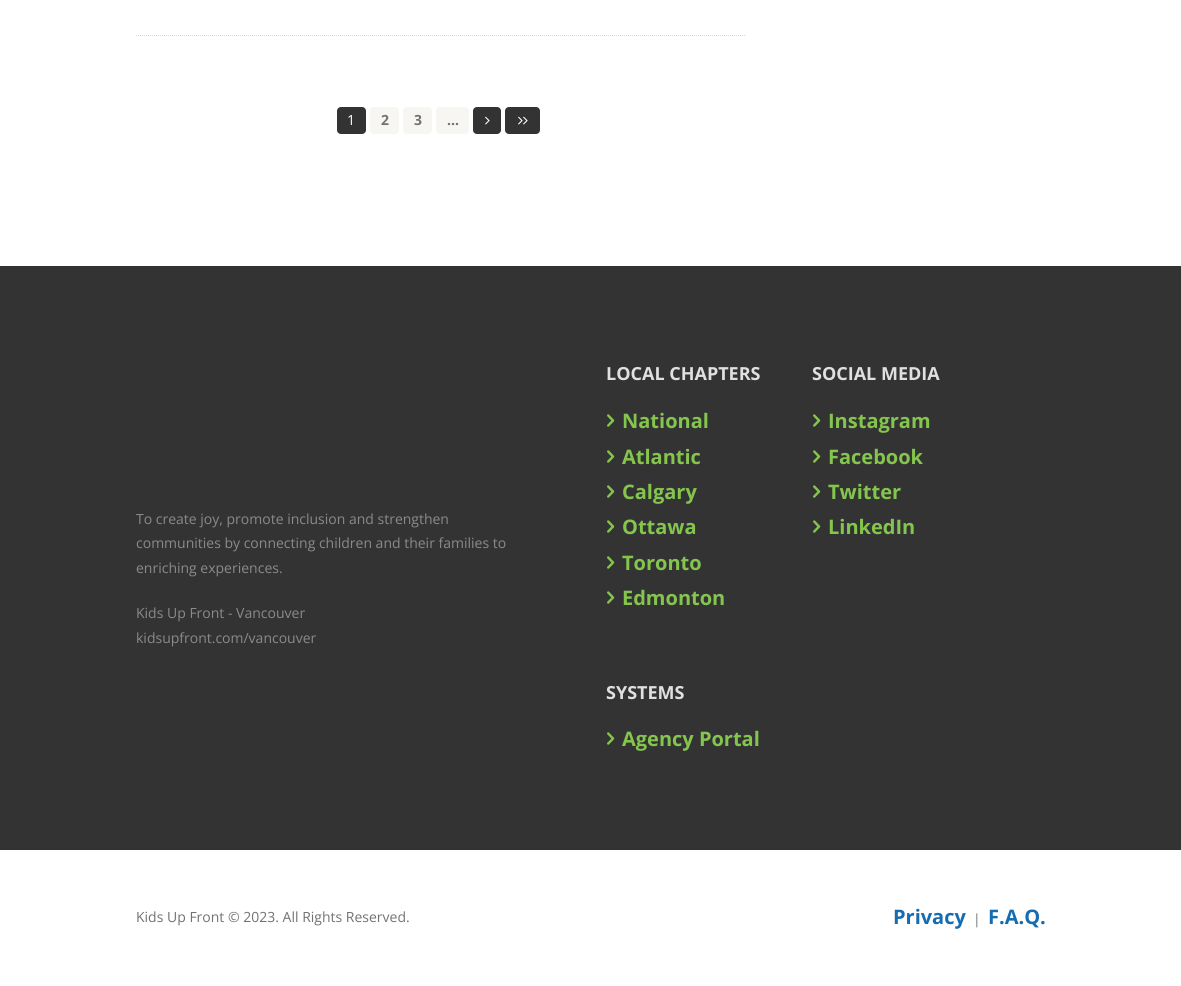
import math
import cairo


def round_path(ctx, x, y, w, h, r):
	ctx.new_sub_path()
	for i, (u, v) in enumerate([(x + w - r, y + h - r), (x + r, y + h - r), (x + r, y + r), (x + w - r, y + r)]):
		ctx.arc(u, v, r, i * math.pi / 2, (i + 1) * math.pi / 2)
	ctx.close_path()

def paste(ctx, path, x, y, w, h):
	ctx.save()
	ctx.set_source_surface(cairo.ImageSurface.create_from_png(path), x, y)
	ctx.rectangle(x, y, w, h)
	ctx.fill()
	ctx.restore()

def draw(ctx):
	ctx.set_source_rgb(1, 1, 1)
	ctx.paint()
	ctx.new_path()
	ctx.move_to(136, 35.5)
	ctx.line_to(746, 35.5)
	ctx.set_source_rgb(0.847, 0.847, 0.847)
	ctx.set_line_width(1)
	ctx.set_dash([1, 1])
	ctx.stroke()
	ctx.set_source_rgb(0.2, 0.2, 0.2)
	round_path(ctx, 337, 107, 29, 27, 4)
	ctx.fill()
	ctx.select_font_face('Open Sans')
	ctx.set_font_size(14)
	ctx.set_source_rgb(1, 1, 1)
	ctx.move_to(347, 125)
	ctx.show_text('1')
	ctx.set_source_rgb(0.965, 0.961, 0.949)
	round_path(ctx, 370, 107, 29, 27, 4)
	ctx.fill()
	ctx.select_font_face('Open Sans', cairo.FONT_SLANT_NORMAL, cairo.FONT_WEIGHT_BOLD)
	ctx.set_source_rgb(0.447, 0.447, 0.447)
	ctx.move_to(381, 125)
	ctx.show_text('2')
	ctx.set_source_rgb(0.965, 0.961, 0.949)
	round_path(ctx, 403, 107, 29, 27, 4)
	ctx.fill()
	ctx.set_source_rgb(0.447, 0.447, 0.447)
	ctx.move_to(414, 125)
	ctx.show_text('3')
	ctx.set_source_rgb(0.965, 0.961, 0.949)
	round_path(ctx, 436, 107, 33, 27, 4)
	ctx.fill()
	ctx.set_source_rgb(0.447, 0.447, 0.447)
	ctx.move_to(447, 125)
	ctx.show_text('…')
	ctx.set_source_rgb(0.2, 0.2, 0.2)
	round_path(ctx, 473, 107, 28, 27, 4)
	ctx.fill()
	paste(ctx, 'media/1.png', 485, 116, 5, 9)
	round_path(ctx, 505, 107, 35, 27, 4)
	ctx.fill()
	paste(ctx, 'media/2.png', 518, 116, 10, 9)
	ctx.rectangle(0, 266, 1181, 584)
	ctx.fill()
	ctx.select_font_face('Open Sans')
	ctx.set_source_rgb(0.541, 0.541, 0.541)
	for x, y, s in [
		(136, 524, 'To create joy, promote inclusion and strengthen'),
		(136, 548, 'communities by connecting children and their families to'),
		(136, 573, 'enriching experiences.'),
		(136, 618, 'Kids Up Front - Vancouver'),
		(136, 643, 'kidsupfront.com/vancouver'),
	]:
		ctx.move_to(x, y)
		ctx.show_text(s)
	ctx.select_font_face('Open Sans', cairo.FONT_SLANT_NORMAL, cairo.FONT_WEIGHT_BOLD)
	ctx.set_font_size(18)
	ctx.set_source_rgb(0.878, 0.878, 0.878)
	ctx.move_to(606, 380)
	ctx.show_text('LOCAL CHAPTERS')
	paste(ctx, 'media/3.png', 607, 414, 8, 13)
	ctx.set_font_size(20)
	ctx.set_source_rgb(0.518, 0.773, 0.306)
	ctx.move_to(622, 428)
	ctx.show_text('National')
	paste(ctx, 'media/3.png', 607, 450, 8, 13)
	ctx.move_to(622, 464)
	ctx.show_text('Atlantic')
	paste(ctx, 'media/3.png', 607, 485, 8, 13)
	ctx.move_to(622, 499)
	ctx.show_text('Calgary')
	paste(ctx, 'media/3.png', 607, 520, 8, 13)
	ctx.move_to(622, 534)
	ctx.show_text('Ottawa')
	paste(ctx, 'media/3.png', 607, 556, 8, 13)
	ctx.move_to(622, 570)
	ctx.show_text('Toronto')
	paste(ctx, 'media/3.png', 607, 591, 8, 13)
	ctx.move_to(622, 605)
	ctx.show_text('Edmonton')
	ctx.set_font_size(18)
	ctx.set_source_rgb(0.878, 0.878, 0.878)
	ctx.move_to(812, 380)
	ctx.show_text('SOCIAL MEDIA')
	paste(ctx, 'media/3.png', 813, 414, 8, 13)
	ctx.set_font_size(20)
	ctx.set_source_rgb(0.518, 0.773, 0.306)
	ctx.move_to(828, 428)
	ctx.show_text('Instagram')
	paste(ctx, 'media/3.png', 813, 450, 8, 13)
	ctx.move_to(828, 464)
	ctx.show_text('Facebook')
	paste(ctx, 'media/3.png', 813, 485, 8, 13)
	ctx.move_to(828, 499)
	ctx.show_text('Twitter')
	paste(ctx, 'media/3.png', 813, 520, 8, 13)
	ctx.move_to(828, 534)
	ctx.show_text('LinkedIn')
	ctx.set_font_size(18)
	ctx.set_source_rgb(0.878, 0.878, 0.878)
	ctx.move_to(606, 699)
	ctx.show_text('SYSTEMS')
	paste(ctx, 'media/3.png', 607, 732, 8, 13)
	ctx.set_font_size(20)
	ctx.set_source_rgb(0.518, 0.773, 0.306)
	ctx.move_to(622, 746)
	ctx.show_text('Agency Portal')
	ctx.select_font_face('Open Sans')
	ctx.set_font_size(14)
	ctx.set_source_rgb(0.447, 0.447, 0.447)
	ctx.move_to(136, 922)
	ctx.show_text('Kids Up Front © 2023. All Rights Reserved.')
	ctx.select_font_face('Open Sans', cairo.FONT_SLANT_NORMAL, cairo.FONT_WEIGHT_BOLD)
	ctx.set_font_size(20)
	ctx.set_source_rgb(0.086, 0.424, 0.69)
	ctx.move_to(893, 924)
	ctx.show_text('Privacy')
	ctx.select_font_face('Open Sans')
	ctx.set_font_size(14)
	ctx.set_source_rgb(0.447, 0.447, 0.447)
	ctx.move_to(973, 924)
	ctx.show_text('|')
	ctx.select_font_face('Open Sans', cairo.FONT_SLANT_NORMAL, cairo.FONT_WEIGHT_BOLD)
	ctx.set_font_size(20)
	ctx.set_source_rgb(0.086, 0.424, 0.69)
	ctx.move_to(988, 924)
	ctx.show_text('F.A.Q.')


surface = cairo.ImageSurface(cairo.FORMAT_RGB24, 1181, 986)
ctx = cairo.Context(surface)
options = cairo.FontOptions()
options.set_hint_metrics(cairo.HINT_METRICS_OFF)
options.set_hint_style(cairo.HINT_STYLE_NONE)
ctx.set_font_options(options)
ctx.set_miter_limit(4)
draw(ctx)
surface.write_to_png('image.png')
